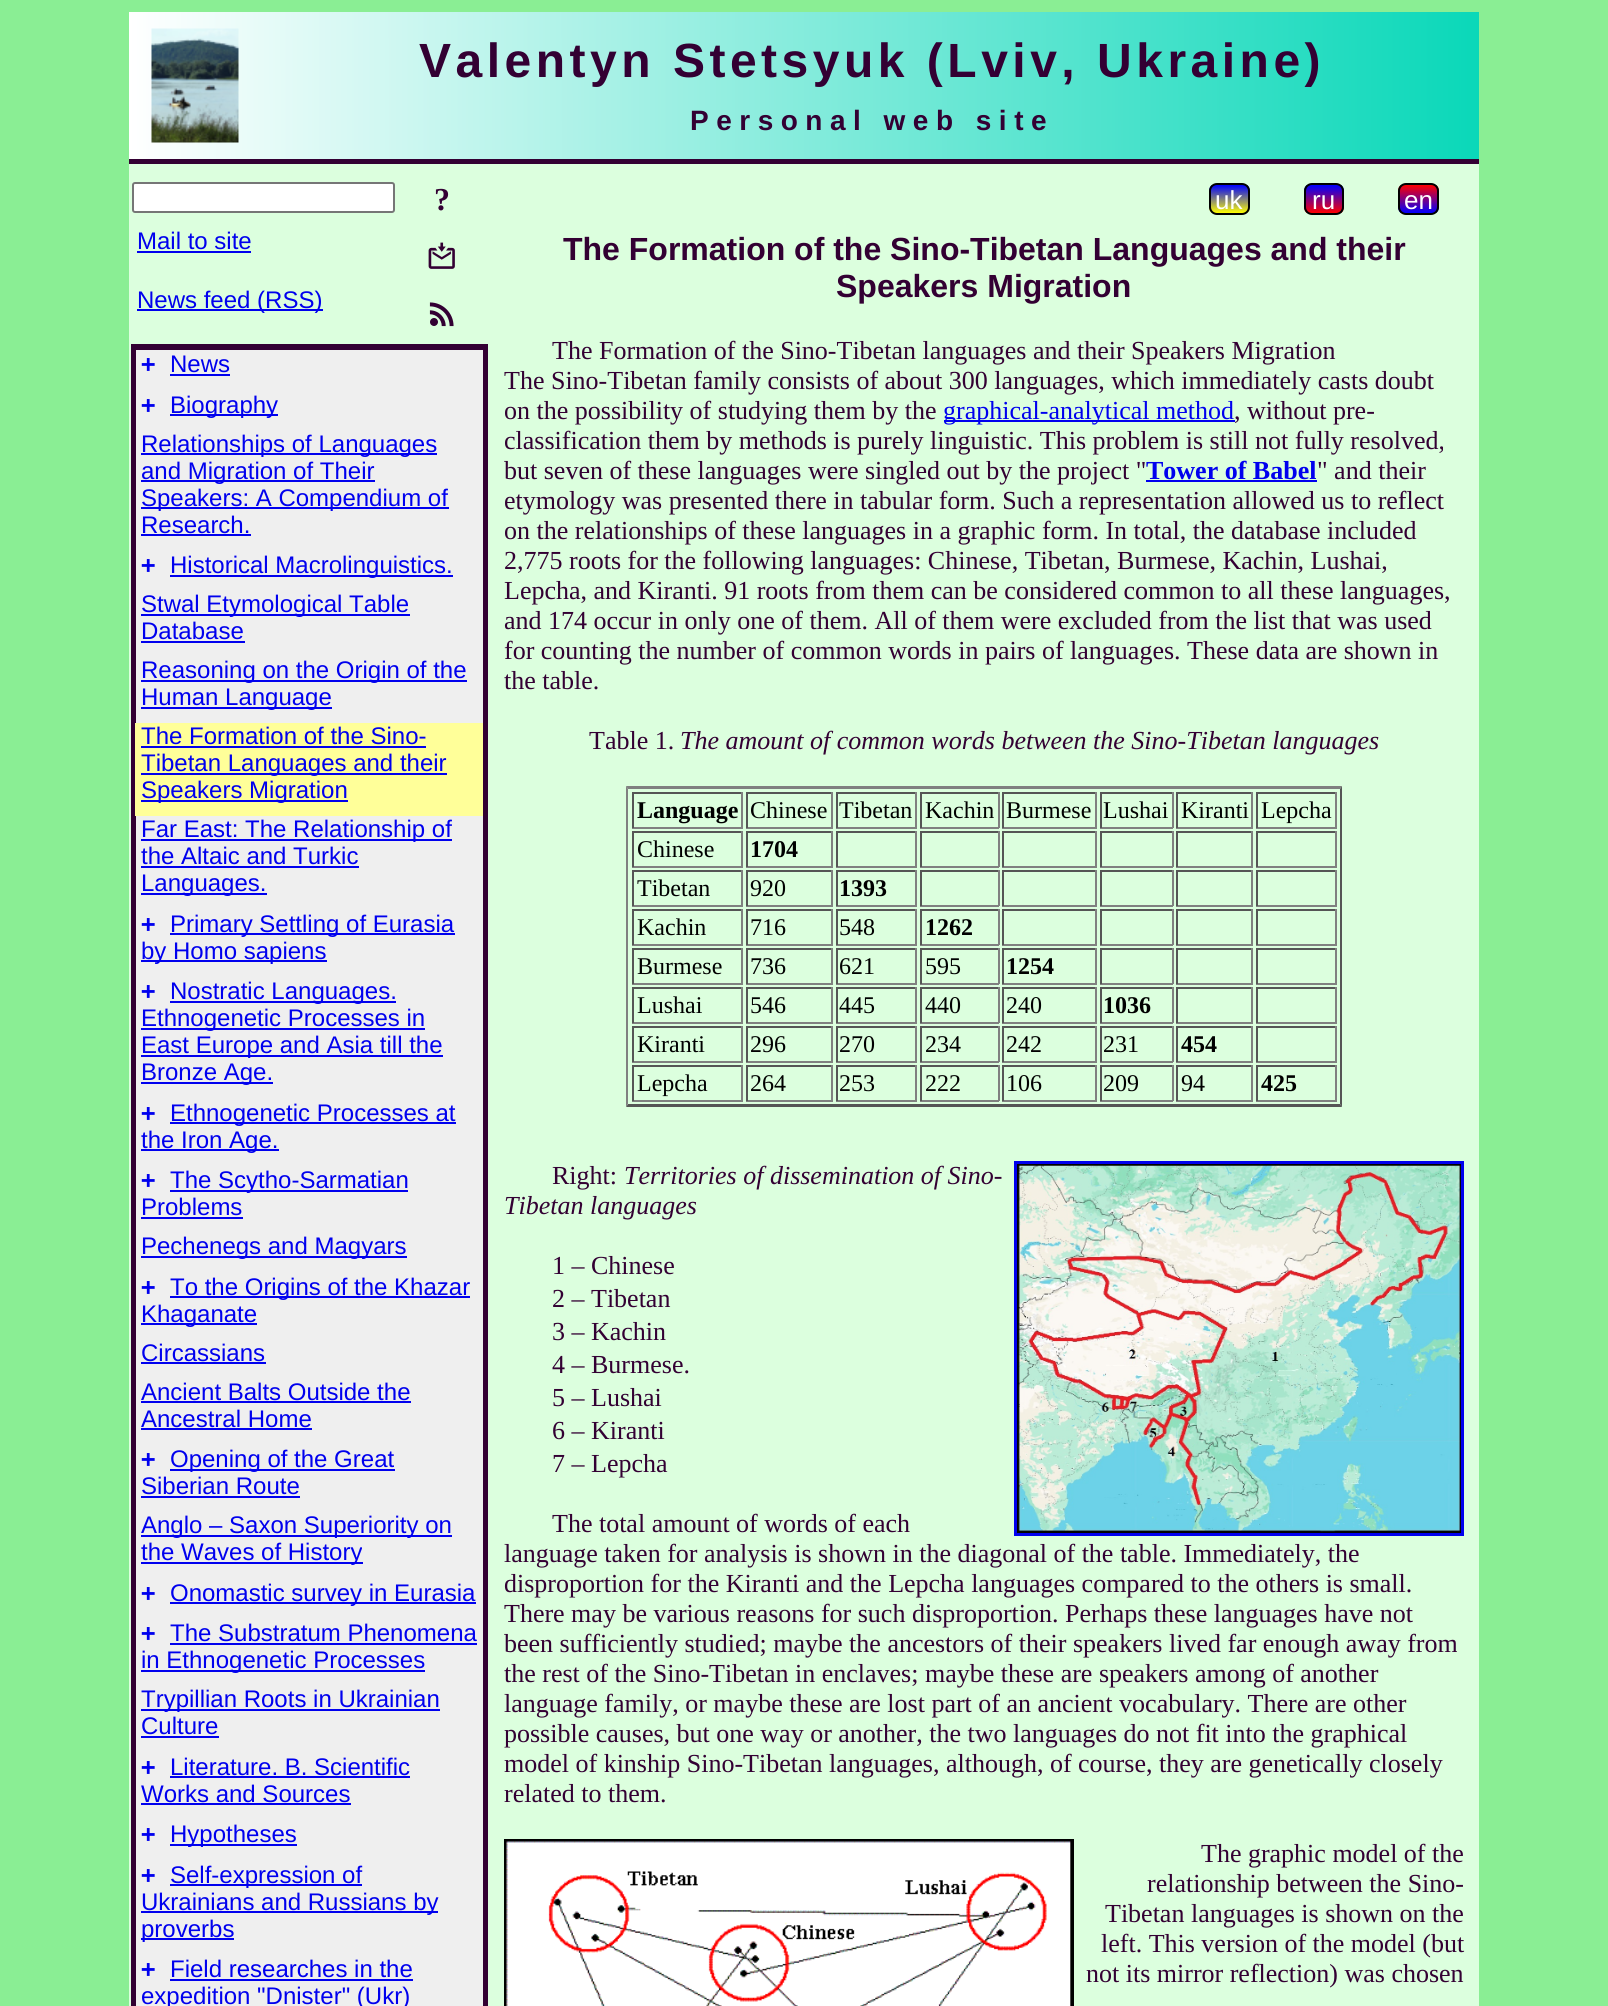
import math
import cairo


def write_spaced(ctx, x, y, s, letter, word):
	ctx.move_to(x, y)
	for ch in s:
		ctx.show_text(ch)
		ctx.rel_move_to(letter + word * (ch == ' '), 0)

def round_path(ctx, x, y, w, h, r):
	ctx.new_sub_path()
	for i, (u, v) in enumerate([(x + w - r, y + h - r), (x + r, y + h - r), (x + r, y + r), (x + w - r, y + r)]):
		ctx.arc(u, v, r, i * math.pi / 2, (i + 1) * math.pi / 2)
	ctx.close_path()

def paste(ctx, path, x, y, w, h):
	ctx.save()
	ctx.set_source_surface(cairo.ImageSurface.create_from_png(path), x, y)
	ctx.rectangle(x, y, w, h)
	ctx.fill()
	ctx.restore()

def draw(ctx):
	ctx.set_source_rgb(0.541, 0.933, 0.58)
	ctx.paint()
	gradient = cairo.LinearGradient(129, 86, 1479, 85)
	gradient.add_color_stop_rgba(0, 1, 1, 1, 1)
	gradient.add_color_stop_rgba(1, 0.039, 0.847, 0.725, 1)
	ctx.set_source(gradient)
	ctx.rectangle(129, 12, 1350, 147)
	ctx.fill()
	ctx.set_source_rgb(0.2, 0, 0.2)
	ctx.rectangle(129, 159, 1350, 5)
	ctx.fill()
	paste(ctx, 'media/1.png', 151, 28, 88, 115)
	ctx.select_font_face('Liberation Sans', cairo.FONT_SLANT_NORMAL, cairo.FONT_WEIGHT_BOLD)
	ctx.set_font_size(48)
	write_spaced(ctx, 419, 77, 'Valentyn Stetsyuk (Lviv, Ukraine)', 4.5, 0)
	ctx.set_font_size(28)
	write_spaced(ctx, 690, 130, 'Personal web site', 7.5, 0)
	ctx.set_source_rgb(0.863, 1, 0.871)
	ctx.rectangle(129, 164, 1350, 1842)
	ctx.fill()
	ctx.set_source_rgb(0.2, 0, 0.2)
	ctx.rectangle(131, 344, 357, 1)
	ctx.fill()
	ctx.set_source_rgb(1, 1, 1)
	round_path(ctx, 133, 183, 261, 29, 2)
	ctx.fill_preserve()
	ctx.set_source_rgb(0.463, 0.463, 0.463)
	ctx.stroke()
	ctx.select_font_face('Liberation Serif', cairo.FONT_SLANT_NORMAL, cairo.FONT_WEIGHT_BOLD)
	ctx.set_font_size(32)
	ctx.set_source_rgb(0.2, 0, 0.2)
	ctx.move_to(434, 210)
	ctx.show_text('?')
	ctx.select_font_face('Liberation Sans')
	ctx.set_font_size(24)
	ctx.set_source_rgb(0, 0, 0.933)
	ctx.move_to(137, 249)
	ctx.show_text('Mail to site')
	ctx.rectangle(137, 251, 114, 2)
	ctx.fill()
	paste(ctx, 'media/2.png', 428, 242, 27, 27)
	ctx.rectangle(137, 309, 186, 2)
	ctx.fill()
	ctx.move_to(137, 308)
	ctx.show_text('News feed (RSS)')
	paste(ctx, 'media/3.png', 429, 302, 25, 25)
	ctx.set_source_rgb(0.937, 0.937, 0.937)
	ctx.rectangle(133.5, 347.5, 352, 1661)
	ctx.fill_preserve()
	ctx.set_source_rgb(0.2, 0, 0.2)
	ctx.set_line_width(5)
	ctx.stroke()
	ctx.select_font_face('DejaVu Sans Mono', cairo.FONT_SLANT_NORMAL, cairo.FONT_WEIGHT_BOLD)
	ctx.set_source_rgb(0, 0, 0.933)
	ctx.move_to(141, 372)
	ctx.show_text('+')
	ctx.select_font_face('Liberation Sans')
	ctx.move_to(170, 372)
	ctx.show_text('News')
	ctx.rectangle(170, 374, 60, 2)
	ctx.fill()
	ctx.select_font_face('DejaVu Sans Mono', cairo.FONT_SLANT_NORMAL, cairo.FONT_WEIGHT_BOLD)
	ctx.move_to(141, 413)
	ctx.show_text('+')
	ctx.rectangle(170, 414, 108, 2)
	ctx.fill()
	ctx.select_font_face('Liberation Sans')
	ctx.move_to(170, 413)
	ctx.show_text('Biography')
	ctx.rectangle(141, 453, 296, 2)
	ctx.fill()
	ctx.move_to(141, 452)
	ctx.show_text('Relationships of Languages')
	ctx.rectangle(141, 480, 234, 2)
	ctx.fill()
	ctx.move_to(141, 479)
	ctx.show_text('and Migration of Their')
	ctx.rectangle(141, 507, 308, 2)
	ctx.fill()
	ctx.move_to(141, 506)
	ctx.show_text('Speakers: A Compendium of')
	ctx.move_to(141, 533)
	ctx.show_text('Research.')
	ctx.rectangle(141, 534, 110, 2)
	ctx.fill()
	ctx.select_font_face('DejaVu Sans Mono', cairo.FONT_SLANT_NORMAL, cairo.FONT_WEIGHT_BOLD)
	ctx.move_to(141, 573)
	ctx.show_text('+')
	ctx.rectangle(170, 575, 283, 2)
	ctx.fill()
	ctx.select_font_face('Liberation Sans')
	ctx.move_to(170, 573)
	ctx.show_text('Historical Macrolinguistics.')
	ctx.rectangle(141, 614, 269, 2)
	ctx.fill()
	ctx.move_to(141, 612)
	ctx.show_text('Stwal Etymological Table')
	ctx.move_to(141, 639)
	ctx.show_text('Database')
	ctx.rectangle(141, 641, 104, 2)
	ctx.fill()
	ctx.rectangle(141, 680, 326, 2)
	ctx.fill()
	ctx.move_to(141, 678)
	ctx.show_text('Reasoning on the Origin of the')
	ctx.rectangle(141, 707, 191, 2)
	ctx.fill()
	ctx.move_to(141, 705)
	ctx.show_text('Human Language')
	ctx.set_source_rgb(1, 1, 0.6)
	ctx.rectangle(135, 723, 348, 93)
	ctx.fill()
	ctx.set_source_rgb(0, 0, 0.933)
	ctx.move_to(141, 744)
	ctx.show_text('The Formation of the Sino-')
	ctx.rectangle(141, 746, 285, 2)
	ctx.fill()
	ctx.rectangle(141, 773, 306, 2)
	ctx.fill()
	ctx.move_to(141, 771)
	ctx.show_text('Tibetan Languages and their')
	ctx.rectangle(141, 800, 207, 2)
	ctx.fill()
	ctx.move_to(141, 798)
	ctx.show_text('Speakers Migration')
	ctx.rectangle(141, 839, 311, 2)
	ctx.fill()
	ctx.move_to(141, 837)
	ctx.show_text('Far East: The Relationship of')
	ctx.move_to(141, 864)
	ctx.show_text('the Altaic and Turkic')
	ctx.rectangle(141, 866, 218, 2)
	ctx.fill()
	ctx.rectangle(141, 893, 126, 2)
	ctx.fill()
	ctx.move_to(141, 891)
	ctx.show_text('Languages.')
	ctx.select_font_face('DejaVu Sans Mono', cairo.FONT_SLANT_NORMAL, cairo.FONT_WEIGHT_BOLD)
	ctx.move_to(141, 932)
	ctx.show_text('+')
	ctx.rectangle(170, 933, 285, 2)
	ctx.fill()
	ctx.select_font_face('Liberation Sans')
	ctx.move_to(170, 932)
	ctx.show_text('Primary Settling of Eurasia')
	ctx.rectangle(141, 960, 186, 2)
	ctx.fill()
	ctx.move_to(141, 959)
	ctx.show_text('by Homo sapiens')
	ctx.select_font_face('DejaVu Sans Mono', cairo.FONT_SLANT_NORMAL, cairo.FONT_WEIGHT_BOLD)
	ctx.move_to(141, 999)
	ctx.show_text('+')
	ctx.rectangle(170, 1001, 226, 2)
	ctx.fill()
	ctx.select_font_face('Liberation Sans')
	ctx.move_to(170, 999)
	ctx.show_text('Nostratic Languages.')
	ctx.rectangle(141, 1028, 284, 2)
	ctx.fill()
	ctx.move_to(141, 1026)
	ctx.show_text('Ethnogenetic Processes in')
	ctx.rectangle(141, 1055, 302, 2)
	ctx.fill()
	ctx.move_to(141, 1053)
	ctx.show_text('East Europe and Asia till the')
	ctx.rectangle(141, 1082, 132, 2)
	ctx.fill()
	ctx.move_to(141, 1080)
	ctx.show_text('Bronze Age.')
	ctx.select_font_face('DejaVu Sans Mono', cairo.FONT_SLANT_NORMAL, cairo.FONT_WEIGHT_BOLD)
	ctx.move_to(141, 1121)
	ctx.show_text('+')
	ctx.rectangle(170, 1122, 286, 2)
	ctx.fill()
	ctx.select_font_face('Liberation Sans')
	ctx.move_to(170, 1121)
	ctx.show_text('Ethnogenetic Processes at')
	ctx.rectangle(141, 1149, 138, 2)
	ctx.fill()
	ctx.move_to(141, 1148)
	ctx.show_text('the Iron Age.')
	ctx.select_font_face('DejaVu Sans Mono', cairo.FONT_SLANT_NORMAL, cairo.FONT_WEIGHT_BOLD)
	ctx.move_to(141, 1188)
	ctx.show_text('+')
	ctx.rectangle(170, 1190, 238, 2)
	ctx.fill()
	ctx.select_font_face('Liberation Sans')
	ctx.move_to(170, 1188)
	ctx.show_text('The Scytho-Sarmatian')
	ctx.move_to(141, 1215)
	ctx.show_text('Problems')
	ctx.rectangle(141, 1217, 102, 2)
	ctx.fill()
	ctx.rectangle(141, 1256, 266, 2)
	ctx.fill()
	ctx.move_to(141, 1254)
	ctx.show_text('Pechenegs and Magyars')
	ctx.select_font_face('DejaVu Sans Mono', cairo.FONT_SLANT_NORMAL, cairo.FONT_WEIGHT_BOLD)
	ctx.move_to(141, 1295)
	ctx.show_text('+')
	ctx.rectangle(170, 1296, 300, 2)
	ctx.fill()
	ctx.select_font_face('Liberation Sans')
	ctx.move_to(170, 1295)
	ctx.show_text('To the Origins of the Khazar')
	ctx.rectangle(141, 1323, 116, 2)
	ctx.fill()
	ctx.move_to(141, 1322)
	ctx.show_text('Khaganate')
	ctx.move_to(141, 1361)
	ctx.show_text('Circassians')
	ctx.rectangle(141, 1362, 125, 2)
	ctx.fill()
	ctx.move_to(141, 1400)
	ctx.show_text('Ancient Balts Outside the')
	ctx.rectangle(141, 1401, 270, 2)
	ctx.fill()
	ctx.move_to(141, 1427)
	ctx.show_text('Ancestral Home')
	ctx.rectangle(141, 1428, 171, 2)
	ctx.fill()
	ctx.select_font_face('DejaVu Sans Mono', cairo.FONT_SLANT_NORMAL, cairo.FONT_WEIGHT_BOLD)
	ctx.move_to(141, 1467)
	ctx.show_text('+')
	ctx.rectangle(170, 1469, 225, 2)
	ctx.fill()
	ctx.select_font_face('Liberation Sans')
	ctx.move_to(170, 1467)
	ctx.show_text('Opening of the Great')
	ctx.move_to(141, 1494)
	ctx.show_text('Siberian Route')
	ctx.rectangle(141, 1496, 159, 2)
	ctx.fill()
	ctx.rectangle(141, 1535, 311, 2)
	ctx.fill()
	ctx.move_to(141, 1533)
	ctx.show_text('Anglo – Saxon Superiority on')
	ctx.rectangle(141, 1562, 222, 2)
	ctx.fill()
	ctx.move_to(141, 1560)
	ctx.show_text('the Waves of History')
	ctx.select_font_face('DejaVu Sans Mono', cairo.FONT_SLANT_NORMAL, cairo.FONT_WEIGHT_BOLD)
	ctx.move_to(141, 1601)
	ctx.show_text('+')
	ctx.rectangle(170, 1602, 306, 2)
	ctx.fill()
	ctx.select_font_face('Liberation Sans')
	ctx.move_to(170, 1601)
	ctx.show_text('Onomastic survey in Eurasia')
	ctx.select_font_face('DejaVu Sans Mono', cairo.FONT_SLANT_NORMAL, cairo.FONT_WEIGHT_BOLD)
	ctx.move_to(141, 1641)
	ctx.show_text('+')
	ctx.select_font_face('Liberation Sans')
	ctx.move_to(170, 1641)
	ctx.show_text('The Substratum Phenomena')
	ctx.rectangle(170, 1643, 307, 2)
	ctx.fill()
	ctx.rectangle(141, 1670, 284, 2)
	ctx.fill()
	ctx.move_to(141, 1668)
	ctx.show_text('in Ethnogenetic Processes')
	ctx.rectangle(141, 1709, 299, 2)
	ctx.fill()
	ctx.move_to(141, 1707)
	ctx.show_text('Trypillian Roots in Ukrainian')
	ctx.move_to(141, 1734)
	ctx.show_text('Culture')
	ctx.rectangle(141, 1736, 78, 2)
	ctx.fill()
	ctx.select_font_face('DejaVu Sans Mono', cairo.FONT_SLANT_NORMAL, cairo.FONT_WEIGHT_BOLD)
	ctx.move_to(141, 1775)
	ctx.show_text('+')
	ctx.select_font_face('Liberation Sans')
	ctx.move_to(170, 1775)
	ctx.show_text('Literature. B. Scientific')
	ctx.rectangle(170, 1776, 240, 2)
	ctx.fill()
	ctx.move_to(141, 1802)
	ctx.show_text('Works and Sources')
	ctx.rectangle(141, 1803, 210, 2)
	ctx.fill()
	ctx.select_font_face('DejaVu Sans Mono', cairo.FONT_SLANT_NORMAL, cairo.FONT_WEIGHT_BOLD)
	ctx.move_to(141, 1842)
	ctx.show_text('+')
	ctx.rectangle(170, 1844, 127, 2)
	ctx.fill()
	ctx.select_font_face('Liberation Sans')
	ctx.move_to(170, 1842)
	ctx.show_text('Hypotheses')
	ctx.select_font_face('DejaVu Sans Mono', cairo.FONT_SLANT_NORMAL, cairo.FONT_WEIGHT_BOLD)
	ctx.move_to(141, 1883)
	ctx.show_text('+')
	ctx.rectangle(170, 1884, 192, 2)
	ctx.fill()
	ctx.select_font_face('Liberation Sans')
	ctx.move_to(170, 1883)
	ctx.show_text('Self-expression of')
	ctx.rectangle(141, 1911, 297, 2)
	ctx.fill()
	ctx.move_to(141, 1910)
	ctx.show_text('Ukrainians and Russians by')
	ctx.rectangle(141, 1938, 93, 2)
	ctx.fill()
	ctx.move_to(141, 1937)
	ctx.show_text('proverbs')
	ctx.select_font_face('DejaVu Sans Mono', cairo.FONT_SLANT_NORMAL, cairo.FONT_WEIGHT_BOLD)
	ctx.move_to(141, 1977)
	ctx.show_text('+')
	ctx.select_font_face('Liberation Sans')
	ctx.move_to(170, 1977)
	ctx.show_text('Field researches in the')
	ctx.rectangle(170, 1979, 243, 2)
	ctx.fill()
	ctx.move_to(141, 2004)
	ctx.show_text('expedition "Dnister" (Ukr)')
	ctx.save()
	round_path(ctx, 1209, 183, 41, 32, 8)
	ctx.clip()
	gradient = cairo.LinearGradient(1229, 185, 1229, 213)
	gradient.add_color_stop_rgba(0, 0, 0, 1, 1)
	gradient.add_color_stop_rgba(1, 1, 1, 0, 1)
	ctx.set_source(gradient)
	ctx.rectangle(1209, 185, 41, 28)
	ctx.fill()
	ctx.restore()
	round_path(ctx, 1210, 184, 39, 30, 7)
	ctx.set_source_rgb(0, 0, 0)
	ctx.set_line_width(2)
	ctx.stroke()
	ctx.set_font_size(26)
	ctx.set_source_rgb(1, 1, 1)
	ctx.move_to(1215, 209)
	ctx.show_text('uk')
	ctx.save()
	round_path(ctx, 1304, 183, 40, 32, 8)
	ctx.clip()
	gradient = cairo.LinearGradient(1324, 185, 1324, 213)
	gradient.add_color_stop_rgba(0, 0, 0, 1, 1)
	gradient.add_color_stop_rgba(1, 1, 0, 0, 1)
	ctx.set_source(gradient)
	ctx.rectangle(1304, 185, 40, 28)
	ctx.fill()
	ctx.restore()
	round_path(ctx, 1305, 184, 38, 30, 7)
	ctx.set_source_rgb(0, 0, 0)
	ctx.stroke()
	ctx.set_source_rgb(1, 1, 1)
	ctx.move_to(1312, 209)
	ctx.show_text('ru')
	ctx.save()
	round_path(ctx, 1398, 183, 41, 32, 8)
	ctx.clip()
	gradient = cairo.LinearGradient(1418, 185, 1418, 213)
	gradient.add_color_stop_rgba(0, 1, 0, 0, 1)
	gradient.add_color_stop_rgba(1, 0, 0, 1, 1)
	ctx.set_source(gradient)
	ctx.rectangle(1398, 185, 41, 28)
	ctx.fill()
	ctx.restore()
	round_path(ctx, 1399, 184, 39, 30, 7)
	ctx.set_source_rgb(0, 0, 0)
	ctx.stroke()
	ctx.set_source_rgb(1, 1, 1)
	ctx.move_to(1404, 209)
	ctx.show_text('en')
	ctx.select_font_face('Liberation Sans', cairo.FONT_SLANT_NORMAL, cairo.FONT_WEIGHT_BOLD)
	ctx.set_font_size(32)
	ctx.set_source_rgb(0.2, 0, 0.2)
	ctx.move_to(563, 260)
	ctx.show_text('The Formation of the Sino-Tibetan Languages and their')
	ctx.move_to(836, 297)
	ctx.show_text('Speakers Migration')
	ctx.select_font_face('Liberation Serif')
	ctx.set_font_size(26)
	for x, y, s in [
		(552, 359, 'The Formation of the Sino-Tibetan languages and their Speakers Migration'),
		(504, 389, 'The Sino-Tibetan family consists of about 300 languages, which immediately casts doubt'),
		(504, 419, 'on the possibility of studying them by the'),
	]:
		ctx.move_to(x, y)
		ctx.show_text(s)
	ctx.set_source_rgb(0, 0, 0.933)
	ctx.rectangle(944, 420, 291, 2)
	ctx.fill()
	ctx.move_to(943, 419)
	ctx.show_text('graphical-analytical method')
	ctx.set_source_rgb(0.2, 0, 0.2)
	for x, y, s in [
		(1234, 419, ', without pre-'),
		(504, 449, 'classification them by methods is purely linguistic. This problem is still not fully resolved,'),
		(504, 479, 'but seven of these languages were singled out by the project "'),
	]:
		ctx.move_to(x, y)
		ctx.show_text(s)
	ctx.select_font_face('Liberation Serif', cairo.FONT_SLANT_NORMAL, cairo.FONT_WEIGHT_BOLD)
	ctx.set_source_rgb(0, 0, 0.933)
	ctx.move_to(1146, 479)
	ctx.show_text('Tower of Babel')
	ctx.rectangle(1146, 480, 171, 2)
	ctx.fill()
	ctx.select_font_face('Liberation Serif')
	ctx.set_source_rgb(0.2, 0, 0.2)
	for x, y, s in [
		(1317, 479, '" and their'),
		(504, 509, 'etymology was presented there in tabular form. Such a representation allowed us to reflect'),
		(504, 539, 'on the relationships of these languages in a graphic form. In total, the database included'),
		(504, 569, '2,775 roots for the following languages: Chinese, Tibetan, Burmese, Kachin, Lushai,'),
		(504, 599, 'Lepcha, and Kiranti. 91 roots from them can be considered common to all these languages,'),
		(504, 629, 'and 174 occur in only one of them. All of them were excluded from the list that was used'),
		(504, 659, 'for counting the number of common words in pairs of languages. These data are shown in'),
		(504, 689, 'the table.'),
		(589, 749, 'Table 1.'),
	]:
		ctx.move_to(x, y)
		ctx.show_text(s)
	ctx.select_font_face('Liberation Serif', cairo.FONT_SLANT_ITALIC)
	ctx.move_to(680, 749)
	ctx.show_text('The amount of common words between the Sino-Tibetan languages')
	ctx.set_source_rgb(0.502, 0.502, 0.502)
	ctx.new_path()
	ctx.move_to(626, 786)
	ctx.line_to(1342, 786)
	ctx.line_to(1340, 789)
	ctx.line_to(628, 789)
	ctx.close_path()
	ctx.fill()
	ctx.set_source_rgb(0.333, 0.333, 0.333)
	ctx.new_path()
	ctx.move_to(1342, 786)
	ctx.line_to(1342, 1107)
	ctx.line_to(1340, 1104)
	ctx.line_to(1340, 789)
	ctx.close_path()
	ctx.fill()
	ctx.new_path()
	ctx.move_to(1342, 1107)
	ctx.line_to(626, 1107)
	ctx.line_to(628, 1104)
	ctx.line_to(1340, 1104)
	ctx.close_path()
	ctx.fill()
	ctx.set_source_rgb(0.502, 0.502, 0.502)
	ctx.new_path()
	ctx.move_to(626, 1107)
	ctx.line_to(626, 786)
	ctx.line_to(628, 789)
	ctx.line_to(628, 1104)
	ctx.close_path()
	ctx.fill()
	ctx.set_source_rgb(0.333, 0.333, 0.333)
	ctx.rectangle(632, 792, 111, 2)
	ctx.fill()
	ctx.set_source_rgb(0.502, 0.502, 0.502)
	ctx.rectangle(741, 792, 2, 36)
	ctx.rectangle(632, 827, 111, 2)
	ctx.fill()
	ctx.set_source_rgb(0.333, 0.333, 0.333)
	ctx.rectangle(632, 792, 2, 36)
	ctx.fill()
	ctx.select_font_face('Liberation Serif', cairo.FONT_SLANT_NORMAL, cairo.FONT_WEIGHT_BOLD)
	ctx.set_font_size(24)
	ctx.set_source_rgb(0, 0, 0)
	ctx.move_to(637, 818)
	ctx.show_text('Language')
	ctx.set_source_rgb(0.333, 0.333, 0.333)
	ctx.rectangle(746, 792, 87, 2)
	ctx.fill()
	ctx.set_source_rgb(0.502, 0.502, 0.502)
	ctx.rectangle(831, 792, 2, 36)
	ctx.rectangle(746, 827, 87, 2)
	ctx.fill()
	ctx.set_source_rgb(0.333, 0.333, 0.333)
	ctx.rectangle(746, 792, 2, 36)
	ctx.fill()
	ctx.select_font_face('Liberation Serif')
	ctx.set_source_rgb(0, 0, 0)
	ctx.move_to(750, 818)
	ctx.show_text('Chinese')
	ctx.set_source_rgb(0.333, 0.333, 0.333)
	ctx.rectangle(836, 792, 81, 2)
	ctx.fill()
	ctx.set_source_rgb(0.502, 0.502, 0.502)
	ctx.rectangle(915, 792, 2, 36)
	ctx.rectangle(836, 827, 81, 2)
	ctx.fill()
	ctx.set_source_rgb(0.333, 0.333, 0.333)
	ctx.rectangle(836, 792, 2, 36)
	ctx.fill()
	ctx.set_source_rgb(0, 0, 0)
	ctx.move_to(839, 818)
	ctx.show_text('Tibetan')
	ctx.set_source_rgb(0.333, 0.333, 0.333)
	ctx.rectangle(920, 792, 79, 2)
	ctx.fill()
	ctx.set_source_rgb(0.502, 0.502, 0.502)
	ctx.rectangle(998, 792, 2, 36)
	ctx.rectangle(920, 827, 79, 2)
	ctx.fill()
	ctx.set_source_rgb(0.333, 0.333, 0.333)
	ctx.rectangle(920, 792, 2, 36)
	ctx.fill()
	ctx.set_source_rgb(0, 0, 0)
	ctx.move_to(925, 818)
	ctx.show_text('Kachin')
	ctx.set_source_rgb(0.333, 0.333, 0.333)
	ctx.rectangle(1002, 792, 95, 2)
	ctx.fill()
	ctx.set_source_rgb(0.502, 0.502, 0.502)
	ctx.rectangle(1095, 792, 2, 36)
	ctx.rectangle(1002, 827, 95, 2)
	ctx.fill()
	ctx.set_source_rgb(0.333, 0.333, 0.333)
	ctx.rectangle(1002, 792, 2, 36)
	ctx.fill()
	ctx.set_source_rgb(0, 0, 0)
	ctx.move_to(1006, 818)
	ctx.show_text('Burmese')
	ctx.set_source_rgb(0.333, 0.333, 0.333)
	ctx.rectangle(1100, 792, 73, 2)
	ctx.fill()
	ctx.set_source_rgb(0.502, 0.502, 0.502)
	ctx.rectangle(1172, 792, 2, 36)
	ctx.rectangle(1100, 827, 73, 2)
	ctx.fill()
	ctx.set_source_rgb(0.333, 0.333, 0.333)
	ctx.rectangle(1100, 792, 2, 36)
	ctx.fill()
	ctx.set_source_rgb(0, 0, 0)
	ctx.move_to(1103, 818)
	ctx.show_text('Lushai')
	ctx.set_source_rgb(0.333, 0.333, 0.333)
	ctx.rectangle(1176, 792, 77, 2)
	ctx.fill()
	ctx.set_source_rgb(0.502, 0.502, 0.502)
	ctx.rectangle(1251, 792, 2, 36)
	ctx.rectangle(1176, 827, 77, 2)
	ctx.fill()
	ctx.set_source_rgb(0.333, 0.333, 0.333)
	ctx.rectangle(1176, 792, 2, 36)
	ctx.fill()
	ctx.set_source_rgb(0, 0, 0)
	ctx.move_to(1181, 818)
	ctx.show_text('Kiranti')
	ctx.set_source_rgb(0.333, 0.333, 0.333)
	ctx.rectangle(1256, 792, 81, 2)
	ctx.fill()
	ctx.set_source_rgb(0.502, 0.502, 0.502)
	ctx.rectangle(1335, 792, 2, 36)
	ctx.rectangle(1256, 827, 81, 2)
	ctx.fill()
	ctx.set_source_rgb(0.333, 0.333, 0.333)
	ctx.rectangle(1256, 792, 2, 36)
	ctx.fill()
	ctx.set_source_rgb(0, 0, 0)
	ctx.move_to(1261, 818)
	ctx.show_text('Lepcha')
	ctx.set_source_rgb(0.333, 0.333, 0.333)
	ctx.rectangle(632, 831, 111, 2)
	ctx.fill()
	ctx.set_source_rgb(0.502, 0.502, 0.502)
	ctx.rectangle(741, 831, 2, 36)
	ctx.rectangle(632, 866, 111, 2)
	ctx.fill()
	ctx.set_source_rgb(0.333, 0.333, 0.333)
	ctx.rectangle(632, 831, 2, 36)
	ctx.fill()
	ctx.set_source_rgb(0, 0, 0)
	ctx.move_to(637, 857)
	ctx.show_text('Chinese')
	ctx.set_source_rgb(0.333, 0.333, 0.333)
	ctx.rectangle(746, 831, 87, 2)
	ctx.fill()
	ctx.set_source_rgb(0.502, 0.502, 0.502)
	ctx.rectangle(831, 831, 2, 36)
	ctx.rectangle(746, 866, 87, 2)
	ctx.fill()
	ctx.set_source_rgb(0.333, 0.333, 0.333)
	ctx.rectangle(746, 831, 2, 36)
	ctx.fill()
	ctx.select_font_face('Liberation Serif', cairo.FONT_SLANT_NORMAL, cairo.FONT_WEIGHT_BOLD)
	ctx.set_source_rgb(0, 0, 0)
	ctx.move_to(750, 857)
	ctx.show_text('1704')
	ctx.set_source_rgb(0.333, 0.333, 0.333)
	ctx.rectangle(836, 831, 81, 2)
	ctx.fill()
	ctx.set_source_rgb(0.502, 0.502, 0.502)
	ctx.rectangle(915, 831, 2, 36)
	ctx.rectangle(836, 866, 81, 2)
	ctx.fill()
	ctx.set_source_rgb(0.333, 0.333, 0.333)
	ctx.rectangle(836, 831, 2, 36)
	ctx.rectangle(920, 831, 79, 2)
	ctx.fill()
	ctx.set_source_rgb(0.502, 0.502, 0.502)
	ctx.rectangle(998, 831, 2, 36)
	ctx.rectangle(920, 866, 79, 2)
	ctx.fill()
	ctx.set_source_rgb(0.333, 0.333, 0.333)
	ctx.rectangle(920, 831, 2, 36)
	ctx.rectangle(1002, 831, 95, 2)
	ctx.fill()
	ctx.set_source_rgb(0.502, 0.502, 0.502)
	ctx.rectangle(1095, 831, 2, 36)
	ctx.rectangle(1002, 866, 95, 2)
	ctx.fill()
	ctx.set_source_rgb(0.333, 0.333, 0.333)
	ctx.rectangle(1002, 831, 2, 36)
	ctx.rectangle(1100, 831, 73, 2)
	ctx.fill()
	ctx.set_source_rgb(0.502, 0.502, 0.502)
	ctx.rectangle(1172, 831, 2, 36)
	ctx.rectangle(1100, 866, 73, 2)
	ctx.fill()
	ctx.set_source_rgb(0.333, 0.333, 0.333)
	ctx.rectangle(1100, 831, 2, 36)
	ctx.rectangle(1176, 831, 77, 2)
	ctx.fill()
	ctx.set_source_rgb(0.502, 0.502, 0.502)
	ctx.rectangle(1251, 831, 2, 36)
	ctx.rectangle(1176, 866, 77, 2)
	ctx.fill()
	ctx.set_source_rgb(0.333, 0.333, 0.333)
	ctx.rectangle(1176, 831, 2, 36)
	ctx.rectangle(1256, 831, 81, 2)
	ctx.fill()
	ctx.set_source_rgb(0.502, 0.502, 0.502)
	ctx.rectangle(1335, 831, 2, 36)
	ctx.rectangle(1256, 866, 81, 2)
	ctx.fill()
	ctx.set_source_rgb(0.333, 0.333, 0.333)
	ctx.rectangle(1256, 831, 2, 36)
	ctx.rectangle(632, 870, 111, 2)
	ctx.fill()
	ctx.set_source_rgb(0.502, 0.502, 0.502)
	ctx.rectangle(741, 870, 2, 36)
	ctx.rectangle(632, 905, 111, 2)
	ctx.fill()
	ctx.set_source_rgb(0.333, 0.333, 0.333)
	ctx.rectangle(632, 870, 2, 36)
	ctx.fill()
	ctx.select_font_face('Liberation Serif')
	ctx.set_source_rgb(0, 0, 0)
	ctx.move_to(637, 896)
	ctx.show_text('Tibetan')
	ctx.set_source_rgb(0.333, 0.333, 0.333)
	ctx.rectangle(746, 870, 87, 2)
	ctx.fill()
	ctx.set_source_rgb(0.502, 0.502, 0.502)
	ctx.rectangle(831, 870, 2, 36)
	ctx.rectangle(746, 905, 87, 2)
	ctx.fill()
	ctx.set_source_rgb(0.333, 0.333, 0.333)
	ctx.rectangle(746, 870, 2, 36)
	ctx.fill()
	ctx.set_source_rgb(0, 0, 0)
	ctx.move_to(750, 896)
	ctx.show_text('920')
	ctx.set_source_rgb(0.333, 0.333, 0.333)
	ctx.rectangle(836, 870, 81, 2)
	ctx.fill()
	ctx.set_source_rgb(0.502, 0.502, 0.502)
	ctx.rectangle(915, 870, 2, 36)
	ctx.rectangle(836, 905, 81, 2)
	ctx.fill()
	ctx.set_source_rgb(0.333, 0.333, 0.333)
	ctx.rectangle(836, 870, 2, 36)
	ctx.fill()
	ctx.select_font_face('Liberation Serif', cairo.FONT_SLANT_NORMAL, cairo.FONT_WEIGHT_BOLD)
	ctx.set_source_rgb(0, 0, 0)
	ctx.move_to(839, 896)
	ctx.show_text('1393')
	ctx.set_source_rgb(0.333, 0.333, 0.333)
	ctx.rectangle(920, 870, 79, 2)
	ctx.fill()
	ctx.set_source_rgb(0.502, 0.502, 0.502)
	ctx.rectangle(998, 870, 2, 36)
	ctx.rectangle(920, 905, 79, 2)
	ctx.fill()
	ctx.set_source_rgb(0.333, 0.333, 0.333)
	ctx.rectangle(920, 870, 2, 36)
	ctx.rectangle(1002, 870, 95, 2)
	ctx.fill()
	ctx.set_source_rgb(0.502, 0.502, 0.502)
	ctx.rectangle(1095, 870, 2, 36)
	ctx.rectangle(1002, 905, 95, 2)
	ctx.fill()
	ctx.set_source_rgb(0.333, 0.333, 0.333)
	ctx.rectangle(1002, 870, 2, 36)
	ctx.rectangle(1100, 870, 73, 2)
	ctx.fill()
	ctx.set_source_rgb(0.502, 0.502, 0.502)
	ctx.rectangle(1172, 870, 2, 36)
	ctx.rectangle(1100, 905, 73, 2)
	ctx.fill()
	ctx.set_source_rgb(0.333, 0.333, 0.333)
	ctx.rectangle(1100, 870, 2, 36)
	ctx.rectangle(1176, 870, 77, 2)
	ctx.fill()
	ctx.set_source_rgb(0.502, 0.502, 0.502)
	ctx.rectangle(1251, 870, 2, 36)
	ctx.rectangle(1176, 905, 77, 2)
	ctx.fill()
	ctx.set_source_rgb(0.333, 0.333, 0.333)
	ctx.rectangle(1176, 870, 2, 36)
	ctx.rectangle(1256, 870, 81, 2)
	ctx.fill()
	ctx.set_source_rgb(0.502, 0.502, 0.502)
	ctx.rectangle(1335, 870, 2, 36)
	ctx.rectangle(1256, 905, 81, 2)
	ctx.fill()
	ctx.set_source_rgb(0.333, 0.333, 0.333)
	ctx.rectangle(1256, 870, 2, 36)
	ctx.rectangle(632, 909, 111, 2)
	ctx.fill()
	ctx.set_source_rgb(0.502, 0.502, 0.502)
	ctx.rectangle(741, 909, 2, 36)
	ctx.rectangle(632, 944, 111, 2)
	ctx.fill()
	ctx.set_source_rgb(0.333, 0.333, 0.333)
	ctx.rectangle(632, 909, 2, 36)
	ctx.fill()
	ctx.select_font_face('Liberation Serif')
	ctx.set_source_rgb(0, 0, 0)
	ctx.move_to(637, 935)
	ctx.show_text('Kachin')
	ctx.set_source_rgb(0.333, 0.333, 0.333)
	ctx.rectangle(746, 909, 87, 2)
	ctx.fill()
	ctx.set_source_rgb(0.502, 0.502, 0.502)
	ctx.rectangle(831, 909, 2, 36)
	ctx.rectangle(746, 944, 87, 2)
	ctx.fill()
	ctx.set_source_rgb(0.333, 0.333, 0.333)
	ctx.rectangle(746, 909, 2, 36)
	ctx.fill()
	ctx.set_source_rgb(0, 0, 0)
	ctx.move_to(750, 935)
	ctx.show_text('716')
	ctx.set_source_rgb(0.333, 0.333, 0.333)
	ctx.rectangle(836, 909, 81, 2)
	ctx.fill()
	ctx.set_source_rgb(0.502, 0.502, 0.502)
	ctx.rectangle(915, 909, 2, 36)
	ctx.rectangle(836, 944, 81, 2)
	ctx.fill()
	ctx.set_source_rgb(0.333, 0.333, 0.333)
	ctx.rectangle(836, 909, 2, 36)
	ctx.fill()
	ctx.set_source_rgb(0, 0, 0)
	ctx.move_to(839, 935)
	ctx.show_text('548')
	ctx.set_source_rgb(0.333, 0.333, 0.333)
	ctx.rectangle(920, 909, 79, 2)
	ctx.fill()
	ctx.set_source_rgb(0.502, 0.502, 0.502)
	ctx.rectangle(998, 909, 2, 36)
	ctx.rectangle(920, 944, 79, 2)
	ctx.fill()
	ctx.set_source_rgb(0.333, 0.333, 0.333)
	ctx.rectangle(920, 909, 2, 36)
	ctx.fill()
	ctx.select_font_face('Liberation Serif', cairo.FONT_SLANT_NORMAL, cairo.FONT_WEIGHT_BOLD)
	ctx.set_source_rgb(0, 0, 0)
	ctx.move_to(925, 935)
	ctx.show_text('1262')
	ctx.set_source_rgb(0.333, 0.333, 0.333)
	ctx.rectangle(1002, 909, 95, 2)
	ctx.fill()
	ctx.set_source_rgb(0.502, 0.502, 0.502)
	ctx.rectangle(1095, 909, 2, 36)
	ctx.rectangle(1002, 944, 95, 2)
	ctx.fill()
	ctx.set_source_rgb(0.333, 0.333, 0.333)
	ctx.rectangle(1002, 909, 2, 36)
	ctx.rectangle(1100, 909, 73, 2)
	ctx.fill()
	ctx.set_source_rgb(0.502, 0.502, 0.502)
	ctx.rectangle(1172, 909, 2, 36)
	ctx.rectangle(1100, 944, 73, 2)
	ctx.fill()
	ctx.set_source_rgb(0.333, 0.333, 0.333)
	ctx.rectangle(1100, 909, 2, 36)
	ctx.rectangle(1176, 909, 77, 2)
	ctx.fill()
	ctx.set_source_rgb(0.502, 0.502, 0.502)
	ctx.rectangle(1251, 909, 2, 36)
	ctx.rectangle(1176, 944, 77, 2)
	ctx.fill()
	ctx.set_source_rgb(0.333, 0.333, 0.333)
	ctx.rectangle(1176, 909, 2, 36)
	ctx.rectangle(1256, 909, 81, 2)
	ctx.fill()
	ctx.set_source_rgb(0.502, 0.502, 0.502)
	ctx.rectangle(1335, 909, 2, 36)
	ctx.rectangle(1256, 944, 81, 2)
	ctx.fill()
	ctx.set_source_rgb(0.333, 0.333, 0.333)
	ctx.rectangle(1256, 909, 2, 36)
	ctx.rectangle(632, 948, 111, 2)
	ctx.fill()
	ctx.set_source_rgb(0.502, 0.502, 0.502)
	ctx.rectangle(741, 948, 2, 36)
	ctx.rectangle(632, 983, 111, 2)
	ctx.fill()
	ctx.set_source_rgb(0.333, 0.333, 0.333)
	ctx.rectangle(632, 948, 2, 36)
	ctx.fill()
	ctx.select_font_face('Liberation Serif')
	ctx.set_source_rgb(0, 0, 0)
	ctx.move_to(637, 974)
	ctx.show_text('Burmese')
	ctx.set_source_rgb(0.333, 0.333, 0.333)
	ctx.rectangle(746, 948, 87, 2)
	ctx.fill()
	ctx.set_source_rgb(0.502, 0.502, 0.502)
	ctx.rectangle(831, 948, 2, 36)
	ctx.rectangle(746, 983, 87, 2)
	ctx.fill()
	ctx.set_source_rgb(0.333, 0.333, 0.333)
	ctx.rectangle(746, 948, 2, 36)
	ctx.fill()
	ctx.set_source_rgb(0, 0, 0)
	ctx.move_to(750, 974)
	ctx.show_text('736')
	ctx.set_source_rgb(0.333, 0.333, 0.333)
	ctx.rectangle(836, 948, 81, 2)
	ctx.fill()
	ctx.set_source_rgb(0.502, 0.502, 0.502)
	ctx.rectangle(915, 948, 2, 36)
	ctx.rectangle(836, 983, 81, 2)
	ctx.fill()
	ctx.set_source_rgb(0.333, 0.333, 0.333)
	ctx.rectangle(836, 948, 2, 36)
	ctx.fill()
	ctx.set_source_rgb(0, 0, 0)
	ctx.move_to(839, 974)
	ctx.show_text('621')
	ctx.set_source_rgb(0.333, 0.333, 0.333)
	ctx.rectangle(920, 948, 79, 2)
	ctx.fill()
	ctx.set_source_rgb(0.502, 0.502, 0.502)
	ctx.rectangle(998, 948, 2, 36)
	ctx.rectangle(920, 983, 79, 2)
	ctx.fill()
	ctx.set_source_rgb(0.333, 0.333, 0.333)
	ctx.rectangle(920, 948, 2, 36)
	ctx.fill()
	ctx.set_source_rgb(0, 0, 0)
	ctx.move_to(925, 974)
	ctx.show_text('595')
	ctx.set_source_rgb(0.333, 0.333, 0.333)
	ctx.rectangle(1002, 948, 95, 2)
	ctx.fill()
	ctx.set_source_rgb(0.502, 0.502, 0.502)
	ctx.rectangle(1095, 948, 2, 36)
	ctx.rectangle(1002, 983, 95, 2)
	ctx.fill()
	ctx.set_source_rgb(0.333, 0.333, 0.333)
	ctx.rectangle(1002, 948, 2, 36)
	ctx.fill()
	ctx.select_font_face('Liberation Serif', cairo.FONT_SLANT_NORMAL, cairo.FONT_WEIGHT_BOLD)
	ctx.set_source_rgb(0, 0, 0)
	ctx.move_to(1006, 974)
	ctx.show_text('1254')
	ctx.set_source_rgb(0.333, 0.333, 0.333)
	ctx.rectangle(1100, 948, 73, 2)
	ctx.fill()
	ctx.set_source_rgb(0.502, 0.502, 0.502)
	ctx.rectangle(1172, 948, 2, 36)
	ctx.rectangle(1100, 983, 73, 2)
	ctx.fill()
	ctx.set_source_rgb(0.333, 0.333, 0.333)
	ctx.rectangle(1100, 948, 2, 36)
	ctx.rectangle(1176, 948, 77, 2)
	ctx.fill()
	ctx.set_source_rgb(0.502, 0.502, 0.502)
	ctx.rectangle(1251, 948, 2, 36)
	ctx.rectangle(1176, 983, 77, 2)
	ctx.fill()
	ctx.set_source_rgb(0.333, 0.333, 0.333)
	ctx.rectangle(1176, 948, 2, 36)
	ctx.rectangle(1256, 948, 81, 2)
	ctx.fill()
	ctx.set_source_rgb(0.502, 0.502, 0.502)
	ctx.rectangle(1335, 948, 2, 36)
	ctx.rectangle(1256, 983, 81, 2)
	ctx.fill()
	ctx.set_source_rgb(0.333, 0.333, 0.333)
	ctx.rectangle(1256, 948, 2, 36)
	ctx.rectangle(632, 987, 111, 2)
	ctx.fill()
	ctx.set_source_rgb(0.502, 0.502, 0.502)
	ctx.rectangle(741, 987, 2, 36)
	ctx.rectangle(632, 1022, 111, 2)
	ctx.fill()
	ctx.set_source_rgb(0.333, 0.333, 0.333)
	ctx.rectangle(632, 987, 2, 36)
	ctx.fill()
	ctx.select_font_face('Liberation Serif')
	ctx.set_source_rgb(0, 0, 0)
	ctx.move_to(637, 1013)
	ctx.show_text('Lushai')
	ctx.set_source_rgb(0.333, 0.333, 0.333)
	ctx.rectangle(746, 987, 87, 2)
	ctx.fill()
	ctx.set_source_rgb(0.502, 0.502, 0.502)
	ctx.rectangle(831, 987, 2, 36)
	ctx.rectangle(746, 1022, 87, 2)
	ctx.fill()
	ctx.set_source_rgb(0.333, 0.333, 0.333)
	ctx.rectangle(746, 987, 2, 36)
	ctx.fill()
	ctx.set_source_rgb(0, 0, 0)
	ctx.move_to(750, 1013)
	ctx.show_text('546')
	ctx.set_source_rgb(0.333, 0.333, 0.333)
	ctx.rectangle(836, 987, 81, 2)
	ctx.fill()
	ctx.set_source_rgb(0.502, 0.502, 0.502)
	ctx.rectangle(915, 987, 2, 36)
	ctx.rectangle(836, 1022, 81, 2)
	ctx.fill()
	ctx.set_source_rgb(0.333, 0.333, 0.333)
	ctx.rectangle(836, 987, 2, 36)
	ctx.fill()
	ctx.set_source_rgb(0, 0, 0)
	ctx.move_to(839, 1013)
	ctx.show_text('445')
	ctx.set_source_rgb(0.333, 0.333, 0.333)
	ctx.rectangle(920, 987, 79, 2)
	ctx.fill()
	ctx.set_source_rgb(0.502, 0.502, 0.502)
	ctx.rectangle(998, 987, 2, 36)
	ctx.rectangle(920, 1022, 79, 2)
	ctx.fill()
	ctx.set_source_rgb(0.333, 0.333, 0.333)
	ctx.rectangle(920, 987, 2, 36)
	ctx.fill()
	ctx.set_source_rgb(0, 0, 0)
	ctx.move_to(925, 1013)
	ctx.show_text('440')
	ctx.set_source_rgb(0.333, 0.333, 0.333)
	ctx.rectangle(1002, 987, 95, 2)
	ctx.fill()
	ctx.set_source_rgb(0.502, 0.502, 0.502)
	ctx.rectangle(1095, 987, 2, 36)
	ctx.rectangle(1002, 1022, 95, 2)
	ctx.fill()
	ctx.set_source_rgb(0.333, 0.333, 0.333)
	ctx.rectangle(1002, 987, 2, 36)
	ctx.fill()
	ctx.set_source_rgb(0, 0, 0)
	ctx.move_to(1006, 1013)
	ctx.show_text('240')
	ctx.set_source_rgb(0.333, 0.333, 0.333)
	ctx.rectangle(1100, 987, 73, 2)
	ctx.fill()
	ctx.set_source_rgb(0.502, 0.502, 0.502)
	ctx.rectangle(1172, 987, 2, 36)
	ctx.rectangle(1100, 1022, 73, 2)
	ctx.fill()
	ctx.set_source_rgb(0.333, 0.333, 0.333)
	ctx.rectangle(1100, 987, 2, 36)
	ctx.fill()
	ctx.select_font_face('Liberation Serif', cairo.FONT_SLANT_NORMAL, cairo.FONT_WEIGHT_BOLD)
	ctx.set_source_rgb(0, 0, 0)
	ctx.move_to(1103, 1013)
	ctx.show_text('1036')
	ctx.set_source_rgb(0.333, 0.333, 0.333)
	ctx.rectangle(1176, 987, 77, 2)
	ctx.fill()
	ctx.set_source_rgb(0.502, 0.502, 0.502)
	ctx.rectangle(1251, 987, 2, 36)
	ctx.rectangle(1176, 1022, 77, 2)
	ctx.fill()
	ctx.set_source_rgb(0.333, 0.333, 0.333)
	ctx.rectangle(1176, 987, 2, 36)
	ctx.rectangle(1256, 987, 81, 2)
	ctx.fill()
	ctx.set_source_rgb(0.502, 0.502, 0.502)
	ctx.rectangle(1335, 987, 2, 36)
	ctx.rectangle(1256, 1022, 81, 2)
	ctx.fill()
	ctx.set_source_rgb(0.333, 0.333, 0.333)
	ctx.rectangle(1256, 987, 2, 36)
	ctx.rectangle(632, 1026, 111, 2)
	ctx.fill()
	ctx.set_source_rgb(0.502, 0.502, 0.502)
	ctx.rectangle(741, 1026, 2, 36)
	ctx.rectangle(632, 1061, 111, 2)
	ctx.fill()
	ctx.set_source_rgb(0.333, 0.333, 0.333)
	ctx.rectangle(632, 1026, 2, 36)
	ctx.fill()
	ctx.select_font_face('Liberation Serif')
	ctx.set_source_rgb(0, 0, 0)
	ctx.move_to(637, 1052)
	ctx.show_text('Kiranti')
	ctx.set_source_rgb(0.333, 0.333, 0.333)
	ctx.rectangle(746, 1026, 87, 2)
	ctx.fill()
	ctx.set_source_rgb(0.502, 0.502, 0.502)
	ctx.rectangle(831, 1026, 2, 36)
	ctx.rectangle(746, 1061, 87, 2)
	ctx.fill()
	ctx.set_source_rgb(0.333, 0.333, 0.333)
	ctx.rectangle(746, 1026, 2, 36)
	ctx.fill()
	ctx.set_source_rgb(0, 0, 0)
	ctx.move_to(750, 1052)
	ctx.show_text('296')
	ctx.set_source_rgb(0.333, 0.333, 0.333)
	ctx.rectangle(836, 1026, 81, 2)
	ctx.fill()
	ctx.set_source_rgb(0.502, 0.502, 0.502)
	ctx.rectangle(915, 1026, 2, 36)
	ctx.rectangle(836, 1061, 81, 2)
	ctx.fill()
	ctx.set_source_rgb(0.333, 0.333, 0.333)
	ctx.rectangle(836, 1026, 2, 36)
	ctx.fill()
	ctx.set_source_rgb(0, 0, 0)
	ctx.move_to(839, 1052)
	ctx.show_text('270')
	ctx.set_source_rgb(0.333, 0.333, 0.333)
	ctx.rectangle(920, 1026, 79, 2)
	ctx.fill()
	ctx.set_source_rgb(0.502, 0.502, 0.502)
	ctx.rectangle(998, 1026, 2, 36)
	ctx.rectangle(920, 1061, 79, 2)
	ctx.fill()
	ctx.set_source_rgb(0.333, 0.333, 0.333)
	ctx.rectangle(920, 1026, 2, 36)
	ctx.fill()
	ctx.set_source_rgb(0, 0, 0)
	ctx.move_to(925, 1052)
	ctx.show_text('234')
	ctx.set_source_rgb(0.333, 0.333, 0.333)
	ctx.rectangle(1002, 1026, 95, 2)
	ctx.fill()
	ctx.set_source_rgb(0.502, 0.502, 0.502)
	ctx.rectangle(1095, 1026, 2, 36)
	ctx.rectangle(1002, 1061, 95, 2)
	ctx.fill()
	ctx.set_source_rgb(0.333, 0.333, 0.333)
	ctx.rectangle(1002, 1026, 2, 36)
	ctx.fill()
	ctx.set_source_rgb(0, 0, 0)
	ctx.move_to(1006, 1052)
	ctx.show_text('242')
	ctx.set_source_rgb(0.333, 0.333, 0.333)
	ctx.rectangle(1100, 1026, 73, 2)
	ctx.fill()
	ctx.set_source_rgb(0.502, 0.502, 0.502)
	ctx.rectangle(1172, 1026, 2, 36)
	ctx.rectangle(1100, 1061, 73, 2)
	ctx.fill()
	ctx.set_source_rgb(0.333, 0.333, 0.333)
	ctx.rectangle(1100, 1026, 2, 36)
	ctx.fill()
	ctx.set_source_rgb(0, 0, 0)
	ctx.move_to(1103, 1052)
	ctx.show_text('231')
	ctx.set_source_rgb(0.333, 0.333, 0.333)
	ctx.rectangle(1176, 1026, 77, 2)
	ctx.fill()
	ctx.set_source_rgb(0.502, 0.502, 0.502)
	ctx.rectangle(1251, 1026, 2, 36)
	ctx.rectangle(1176, 1061, 77, 2)
	ctx.fill()
	ctx.set_source_rgb(0.333, 0.333, 0.333)
	ctx.rectangle(1176, 1026, 2, 36)
	ctx.fill()
	ctx.select_font_face('Liberation Serif', cairo.FONT_SLANT_NORMAL, cairo.FONT_WEIGHT_BOLD)
	ctx.set_source_rgb(0, 0, 0)
	ctx.move_to(1181, 1052)
	ctx.show_text('454')
	ctx.set_source_rgb(0.333, 0.333, 0.333)
	ctx.rectangle(1256, 1026, 81, 2)
	ctx.fill()
	ctx.set_source_rgb(0.502, 0.502, 0.502)
	ctx.rectangle(1335, 1026, 2, 36)
	ctx.rectangle(1256, 1061, 81, 2)
	ctx.fill()
	ctx.set_source_rgb(0.333, 0.333, 0.333)
	ctx.rectangle(1256, 1026, 2, 36)
	ctx.rectangle(632, 1065, 111, 2)
	ctx.fill()
	ctx.set_source_rgb(0.502, 0.502, 0.502)
	ctx.rectangle(741, 1065, 2, 36)
	ctx.rectangle(632, 1100, 111, 2)
	ctx.fill()
	ctx.set_source_rgb(0.333, 0.333, 0.333)
	ctx.rectangle(632, 1065, 2, 36)
	ctx.fill()
	ctx.select_font_face('Liberation Serif')
	ctx.set_source_rgb(0, 0, 0)
	ctx.move_to(637, 1091)
	ctx.show_text('Lepcha')
	ctx.set_source_rgb(0.333, 0.333, 0.333)
	ctx.rectangle(746, 1065, 87, 2)
	ctx.fill()
	ctx.set_source_rgb(0.502, 0.502, 0.502)
	ctx.rectangle(831, 1065, 2, 36)
	ctx.rectangle(746, 1100, 87, 2)
	ctx.fill()
	ctx.set_source_rgb(0.333, 0.333, 0.333)
	ctx.rectangle(746, 1065, 2, 36)
	ctx.fill()
	ctx.set_source_rgb(0, 0, 0)
	ctx.move_to(750, 1091)
	ctx.show_text('264')
	ctx.set_source_rgb(0.333, 0.333, 0.333)
	ctx.rectangle(836, 1065, 81, 2)
	ctx.fill()
	ctx.set_source_rgb(0.502, 0.502, 0.502)
	ctx.rectangle(915, 1065, 2, 36)
	ctx.rectangle(836, 1100, 81, 2)
	ctx.fill()
	ctx.set_source_rgb(0.333, 0.333, 0.333)
	ctx.rectangle(836, 1065, 2, 36)
	ctx.fill()
	ctx.set_source_rgb(0, 0, 0)
	ctx.move_to(839, 1091)
	ctx.show_text('253')
	ctx.set_source_rgb(0.333, 0.333, 0.333)
	ctx.rectangle(920, 1065, 79, 2)
	ctx.fill()
	ctx.set_source_rgb(0.502, 0.502, 0.502)
	ctx.rectangle(998, 1065, 2, 36)
	ctx.rectangle(920, 1100, 79, 2)
	ctx.fill()
	ctx.set_source_rgb(0.333, 0.333, 0.333)
	ctx.rectangle(920, 1065, 2, 36)
	ctx.fill()
	ctx.set_source_rgb(0, 0, 0)
	ctx.move_to(925, 1091)
	ctx.show_text('222')
	ctx.set_source_rgb(0.333, 0.333, 0.333)
	ctx.rectangle(1002, 1065, 95, 2)
	ctx.fill()
	ctx.set_source_rgb(0.502, 0.502, 0.502)
	ctx.rectangle(1095, 1065, 2, 36)
	ctx.rectangle(1002, 1100, 95, 2)
	ctx.fill()
	ctx.set_source_rgb(0.333, 0.333, 0.333)
	ctx.rectangle(1002, 1065, 2, 36)
	ctx.fill()
	ctx.set_source_rgb(0, 0, 0)
	ctx.move_to(1006, 1091)
	ctx.show_text('106')
	ctx.set_source_rgb(0.333, 0.333, 0.333)
	ctx.rectangle(1100, 1065, 73, 2)
	ctx.fill()
	ctx.set_source_rgb(0.502, 0.502, 0.502)
	ctx.rectangle(1172, 1065, 2, 36)
	ctx.rectangle(1100, 1100, 73, 2)
	ctx.fill()
	ctx.set_source_rgb(0.333, 0.333, 0.333)
	ctx.rectangle(1100, 1065, 2, 36)
	ctx.fill()
	ctx.set_source_rgb(0, 0, 0)
	ctx.move_to(1103, 1091)
	ctx.show_text('209')
	ctx.set_source_rgb(0.333, 0.333, 0.333)
	ctx.rectangle(1176, 1065, 77, 2)
	ctx.fill()
	ctx.set_source_rgb(0.502, 0.502, 0.502)
	ctx.rectangle(1251, 1065, 2, 36)
	ctx.rectangle(1176, 1100, 77, 2)
	ctx.fill()
	ctx.set_source_rgb(0.333, 0.333, 0.333)
	ctx.rectangle(1176, 1065, 2, 36)
	ctx.fill()
	ctx.set_source_rgb(0, 0, 0)
	ctx.move_to(1181, 1091)
	ctx.show_text('94')
	ctx.set_source_rgb(0.333, 0.333, 0.333)
	ctx.rectangle(1256, 1065, 81, 2)
	ctx.fill()
	ctx.set_source_rgb(0.502, 0.502, 0.502)
	ctx.rectangle(1335, 1065, 2, 36)
	ctx.rectangle(1256, 1100, 81, 2)
	ctx.fill()
	ctx.set_source_rgb(0.333, 0.333, 0.333)
	ctx.rectangle(1256, 1065, 2, 36)
	ctx.fill()
	ctx.select_font_face('Liberation Serif', cairo.FONT_SLANT_NORMAL, cairo.FONT_WEIGHT_BOLD)
	ctx.set_source_rgb(0, 0, 0)
	ctx.move_to(1261, 1091)
	ctx.show_text('425')
	ctx.select_font_face('Liberation Serif')
	ctx.set_font_size(26)
	ctx.set_source_rgb(0.2, 0, 0.2)
	ctx.move_to(552, 1184)
	ctx.show_text('Right:')
	ctx.select_font_face('Liberation Serif', cairo.FONT_SLANT_ITALIC)
	ctx.move_to(624, 1184)
	ctx.show_text('Territories of dissemination of Sino-')
	ctx.move_to(504, 1214)
	ctx.show_text('Tibetan languages')
	ctx.rectangle(1015.5, 1162.5, 447, 372)
	ctx.set_source_rgb(0, 0, 0.933)
	ctx.set_line_width(3)
	ctx.stroke()
	paste(ctx, 'media/4.png', 1017, 1164, 444, 369)
	ctx.select_font_face('Liberation Serif')
	ctx.set_source_rgb(0.2, 0, 0.2)
	for x, y, s in [
		(552, 1274, '1 – Chinese'),
		(552, 1307, '2 – Tibetan'),
		(552, 1340, '3 – Kachin'),
		(552, 1373, '4 – Burmese.'),
		(552, 1406, '5 – Lushai'),
		(552, 1439, '6 – Kiranti'),
		(552, 1472, '7 – Lepcha'),
		(552, 1532, 'The total amount of words of each'),
		(504, 1562, 'language taken for analysis is shown in the diagonal of the table. Immediately, the'),
		(504, 1592, 'disproportion for the Kiranti and the Lepcha languages compared to the others is small.'),
		(504, 1622, 'There may be various reasons for such disproportion. Perhaps these languages have not'),
		(504, 1652, 'been sufficiently studied; maybe the ancestors of their speakers lived far enough away from'),
		(504, 1682, 'the rest of the Sino-Tibetan in enclaves; maybe these are speakers among of another'),
		(504, 1712, 'language family, or maybe these are lost part of an ancient vocabulary. There are other'),
		(504, 1742, 'possible causes, but one way or another, the two languages do not fit into the graphical'),
		(504, 1772, 'model of kinship Sino-Tibetan languages, although, of course, they are genetically closely'),
		(504, 1802, 'related to them.'),
	]:
		ctx.move_to(x, y)
		ctx.show_text(s)
	paste(ctx, 'media/5.png', 504, 1839, 570, 167)
	for x, y, s in [
		(1201, 1862, 'The graphic model of the'),
		(1147, 1892, 'relationship between the Sino-'),
		(1105, 1922, 'Tibetan languages is shown on the'),
		(1101, 1952, 'left. This version of the model (but'),
		(1086, 1982, 'not its mirror reflection) was chosen'),
	]:
		ctx.move_to(x, y)
		ctx.show_text(s)


surface = cairo.ImageSurface(cairo.FORMAT_RGB24, 1608, 2006)
ctx = cairo.Context(surface)
options = cairo.FontOptions()
options.set_hint_metrics(cairo.HINT_METRICS_OFF)
options.set_hint_style(cairo.HINT_STYLE_NONE)
ctx.set_font_options(options)
ctx.set_miter_limit(4)
draw(ctx)
surface.write_to_png('image.png')
